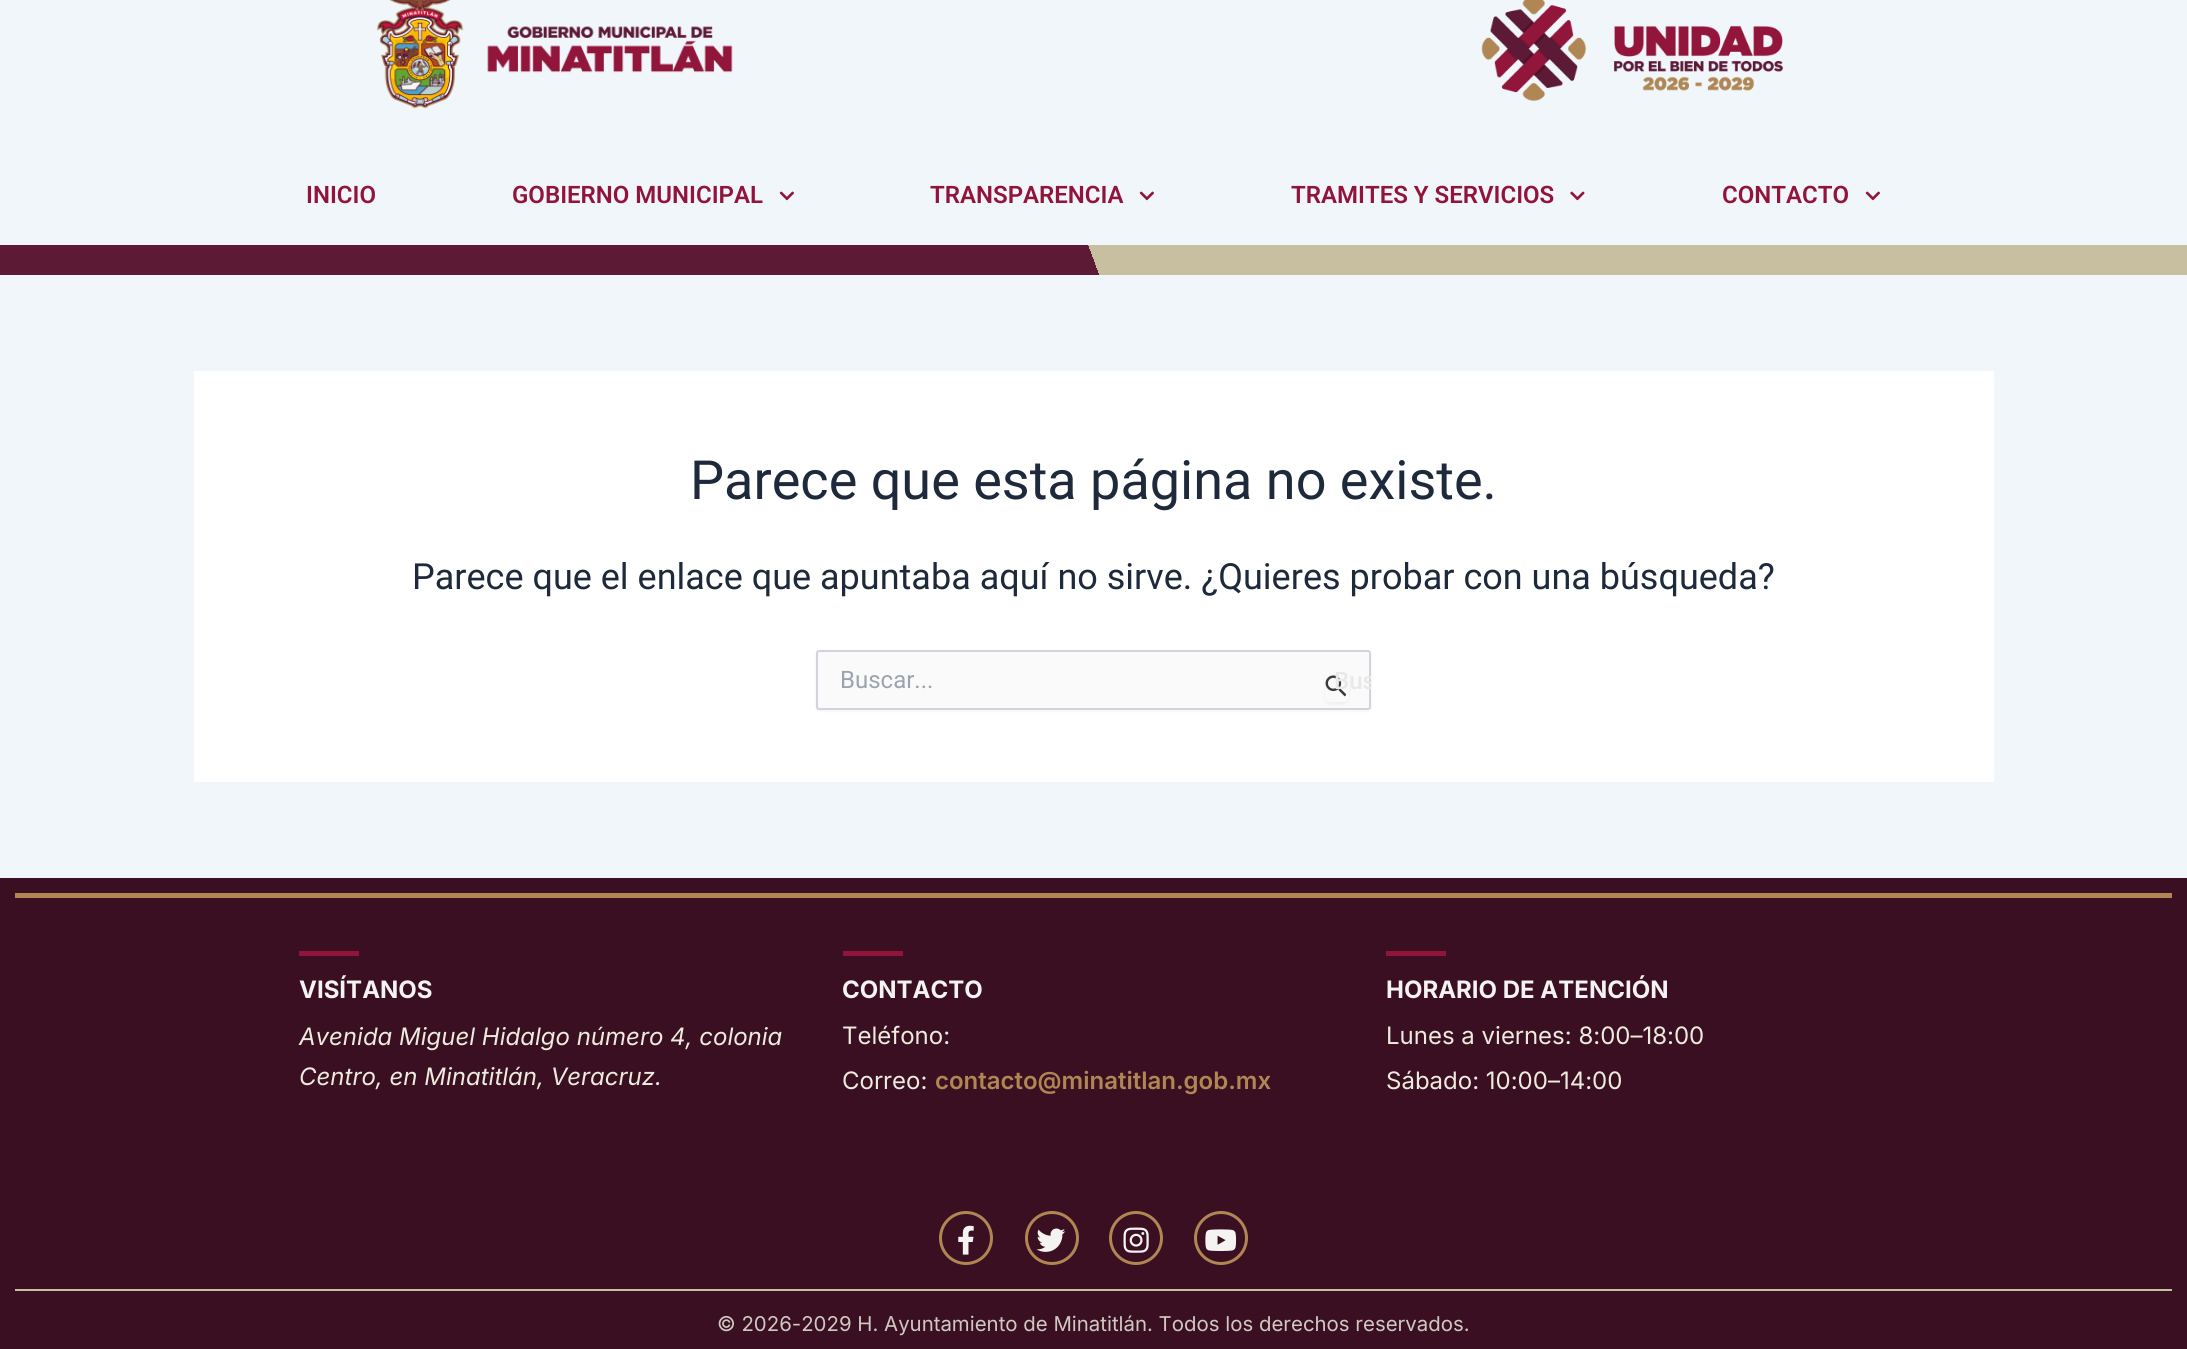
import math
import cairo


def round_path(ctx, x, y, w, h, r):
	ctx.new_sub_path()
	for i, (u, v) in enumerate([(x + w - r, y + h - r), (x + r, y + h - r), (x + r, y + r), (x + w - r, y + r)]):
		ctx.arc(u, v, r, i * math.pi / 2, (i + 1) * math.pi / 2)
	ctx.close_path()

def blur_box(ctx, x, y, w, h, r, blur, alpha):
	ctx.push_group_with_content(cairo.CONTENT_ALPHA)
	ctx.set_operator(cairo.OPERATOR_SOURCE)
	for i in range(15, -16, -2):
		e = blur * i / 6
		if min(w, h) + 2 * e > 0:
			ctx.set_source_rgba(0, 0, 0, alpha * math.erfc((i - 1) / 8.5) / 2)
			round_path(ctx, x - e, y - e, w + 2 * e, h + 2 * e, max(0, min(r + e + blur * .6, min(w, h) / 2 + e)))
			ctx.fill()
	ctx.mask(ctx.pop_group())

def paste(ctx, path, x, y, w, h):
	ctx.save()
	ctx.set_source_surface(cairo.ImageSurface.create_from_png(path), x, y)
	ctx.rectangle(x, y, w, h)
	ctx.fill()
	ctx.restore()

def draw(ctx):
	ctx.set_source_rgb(0.941, 0.961, 0.98)
	ctx.paint()
	paste(ctx, 'media/1.png', 377, 0, 356, 109)
	paste(ctx, 'media/2.png', 1481, 0, 302, 102)
	ctx.select_font_face('Roboto SemiBold')
	ctx.set_font_size(24)
	ctx.set_source_rgb(0.573, 0.082, 0.227)
	ctx.move_to(306, 203)
	ctx.show_text('INICIO')
	ctx.move_to(512, 203)
	ctx.show_text('GOBIERNO MUNICIPAL')
	paste(ctx, 'media/3.png', 779, 191, 15, 10)
	ctx.move_to(930, 203)
	ctx.show_text('TRANSPARENCIA')
	paste(ctx, 'media/3.png', 1139, 191, 15, 10)
	ctx.move_to(1291, 203)
	ctx.show_text('TRAMITES Y SERVICIOS')
	paste(ctx, 'media/4.png', 1570, 191, 15, 10)
	ctx.move_to(1722, 203)
	ctx.show_text('CONTACTO')
	paste(ctx, 'media/3.png', 1865, 191, 15, 10)
	gradient = cairo.LinearGradient(123, 613, 2064, -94)
	gradient.add_color_stop_rgba(0.5, 0.361, 0.102, 0.208, 1)
	gradient.add_color_stop_rgba(0.5, 0.78, 0.749, 0.627, 1)
	ctx.set_source(gradient)
	ctx.rectangle(0, 245, 2187, 30)
	ctx.fill()
	ctx.set_source_rgb(1, 1, 1)
	ctx.rectangle(194, 371, 1800, 411)
	ctx.fill()
	ctx.select_font_face('Roboto')
	ctx.set_font_size(54)
	ctx.set_source_rgb(0.118, 0.161, 0.231)
	ctx.move_to(690, 499)
	ctx.show_text('Parece que esta página no existe.')
	ctx.set_font_size(36)
	ctx.move_to(412, 589)
	ctx.show_text('Parece que el enlace que apuntaba aquí no sirve. ¿Quieres probar con una búsqueda?')
	ctx.set_source_rgb(0, 0, 0)
	blur_box(ctx, 816, 651, 555, 60, 3, 1.5, 0.05)
	ctx.set_source_rgb(0.98, 0.98, 0.98)
	round_path(ctx, 817, 651, 553, 58, 2)
	ctx.fill_preserve()
	ctx.set_source_rgb(0.82, 0.835, 0.859)
	ctx.stroke()
	ctx.set_font_size(24)
	ctx.set_source_rgb(0.612, 0.639, 0.686)
	ctx.move_to(840, 688)
	ctx.show_text('Buscar...')
	ctx.save()
	ctx.set_fill_rule(cairo.FILL_RULE_EVEN_ODD)
	ctx.new_path()
	ctx.move_to(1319, 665)
	ctx.line_to(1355, 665)
	ctx.line_to(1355, 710)
	ctx.line_to(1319, 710)
	ctx.close_path()
	ctx.move_to(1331, 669)
	ctx.line_to(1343, 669)
	ctx.curve_to(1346.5, 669, 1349, 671.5, 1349, 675)
	ctx.line_to(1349, 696)
	ctx.curve_to(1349, 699.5, 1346.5, 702, 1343, 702)
	ctx.line_to(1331, 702)
	ctx.curve_to(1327.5, 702, 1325, 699.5, 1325, 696)
	ctx.line_to(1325, 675)
	ctx.curve_to(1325, 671.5, 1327.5, 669, 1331, 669)
	ctx.close_path()
	ctx.clip()
	ctx.set_source_rgb(0, 0, 0)
	blur_box(ctx, 1325, 671, 24, 33, 6, 1.5, 0.05)
	ctx.restore()
	paste(ctx, 'media/5.png', 1325, 675, 21, 22)
	ctx.save()
	round_path(ctx, 1304, 650, 67, 63, 3)
	ctx.clip()
	ctx.select_font_face('Roboto Medium')
	ctx.set_source_rgb(0.91, 0.91, 0.91)
	ctx.move_to(1334, 689)
	ctx.show_text('Bus')
	ctx.restore()
	ctx.set_source_rgb(0.227, 0.059, 0.133)
	ctx.rectangle(0, 878, 2187, 471)
	ctx.fill()
	ctx.set_source_rgb(0.69, 0.525, 0.325)
	ctx.rectangle(15, 893, 2157, 5)
	ctx.fill()
	ctx.set_source_rgb(0.573, 0.082, 0.227)
	ctx.rectangle(299, 951, 60, 5)
	ctx.fill()
	ctx.select_font_face('Inter', cairo.FONT_SLANT_NORMAL, cairo.FONT_WEIGHT_BOLD)
	ctx.set_source_rgb(0.957, 0.953, 0.945)
	ctx.move_to(299, 998)
	ctx.show_text('VISÍTANOS')
	ctx.select_font_face('Inter', cairo.FONT_SLANT_ITALIC)
	ctx.set_source_rgb(0.922, 0.918, 0.867)
	ctx.move_to(299, 1045)
	ctx.show_text('Avenida Miguel Hidalgo número 4, colonia')
	ctx.move_to(299, 1085)
	ctx.show_text('Centro, en Minatitlán, Veracruz.')
	ctx.set_source_rgb(0.573, 0.082, 0.227)
	ctx.rectangle(843, 951, 60, 5)
	ctx.fill()
	ctx.select_font_face('Inter', cairo.FONT_SLANT_NORMAL, cairo.FONT_WEIGHT_BOLD)
	ctx.set_source_rgb(0.957, 0.953, 0.945)
	ctx.move_to(842, 998)
	ctx.show_text('CONTACTO')
	ctx.select_font_face('Inter')
	ctx.set_source_rgb(0.922, 0.918, 0.867)
	ctx.move_to(842, 1044)
	ctx.show_text('Teléfono:')
	ctx.move_to(842, 1089)
	ctx.show_text('Correo:')
	ctx.select_font_face('Inter SemiBold')
	ctx.set_source_rgb(0.69, 0.525, 0.325)
	ctx.move_to(935, 1089)
	ctx.show_text('contacto@minatitlan.gob.mx')
	ctx.set_source_rgb(0.573, 0.082, 0.227)
	ctx.rectangle(1386, 951, 60, 5)
	ctx.fill()
	ctx.select_font_face('Inter', cairo.FONT_SLANT_NORMAL, cairo.FONT_WEIGHT_BOLD)
	ctx.set_source_rgb(0.957, 0.953, 0.945)
	ctx.move_to(1386, 998)
	ctx.show_text('HORARIO DE ATENCIÓN')
	ctx.select_font_face('Inter')
	ctx.set_source_rgb(0.922, 0.918, 0.867)
	ctx.move_to(1386, 1044)
	ctx.show_text('Lunes a viernes: 8:00–18:00')
	ctx.move_to(1386, 1089)
	ctx.show_text('Sábado: 10:00–14:00')
	ctx.new_path()
	ctx.arc(966, 1238, 25.5, 0, 2 * math.pi)
	ctx.set_source_rgb(0.69, 0.525, 0.325)
	ctx.set_line_width(3)
	ctx.stroke()
	paste(ctx, 'media/6.png', 958, 1225, 16, 30)
	ctx.arc(1052, 1238, 25.5, 0, 2 * math.pi)
	ctx.stroke()
	paste(ctx, 'media/7.png', 1036, 1228, 30, 24)
	ctx.arc(1136, 1238, 25.5, 0, 2 * math.pi)
	ctx.stroke()
	paste(ctx, 'media/8.png', 1123, 1227, 26, 26)
	ctx.arc(1221, 1238, 25.5, 0, 2 * math.pi)
	ctx.stroke()
	paste(ctx, 'media/9.png', 1205, 1229, 32, 22)
	ctx.set_source_rgb(0.78, 0.749, 0.627)
	ctx.rectangle(15, 1289, 2157, 2)
	ctx.fill()
	ctx.set_font_size(20.4)
	ctx.set_source_rgb(0.816, 0.788, 0.757)
	ctx.move_to(717, 1331)
	ctx.show_text('© 2026-2029 H. Ayuntamiento de Minatitlán. Todos los derechos reservados.')


surface = cairo.ImageSurface(cairo.FORMAT_RGB24, 2187, 1349)
ctx = cairo.Context(surface)
options = cairo.FontOptions()
options.set_hint_metrics(cairo.HINT_METRICS_OFF)
options.set_hint_style(cairo.HINT_STYLE_NONE)
ctx.set_font_options(options)
ctx.set_miter_limit(4)
draw(ctx)
surface.write_to_png('image.png')
